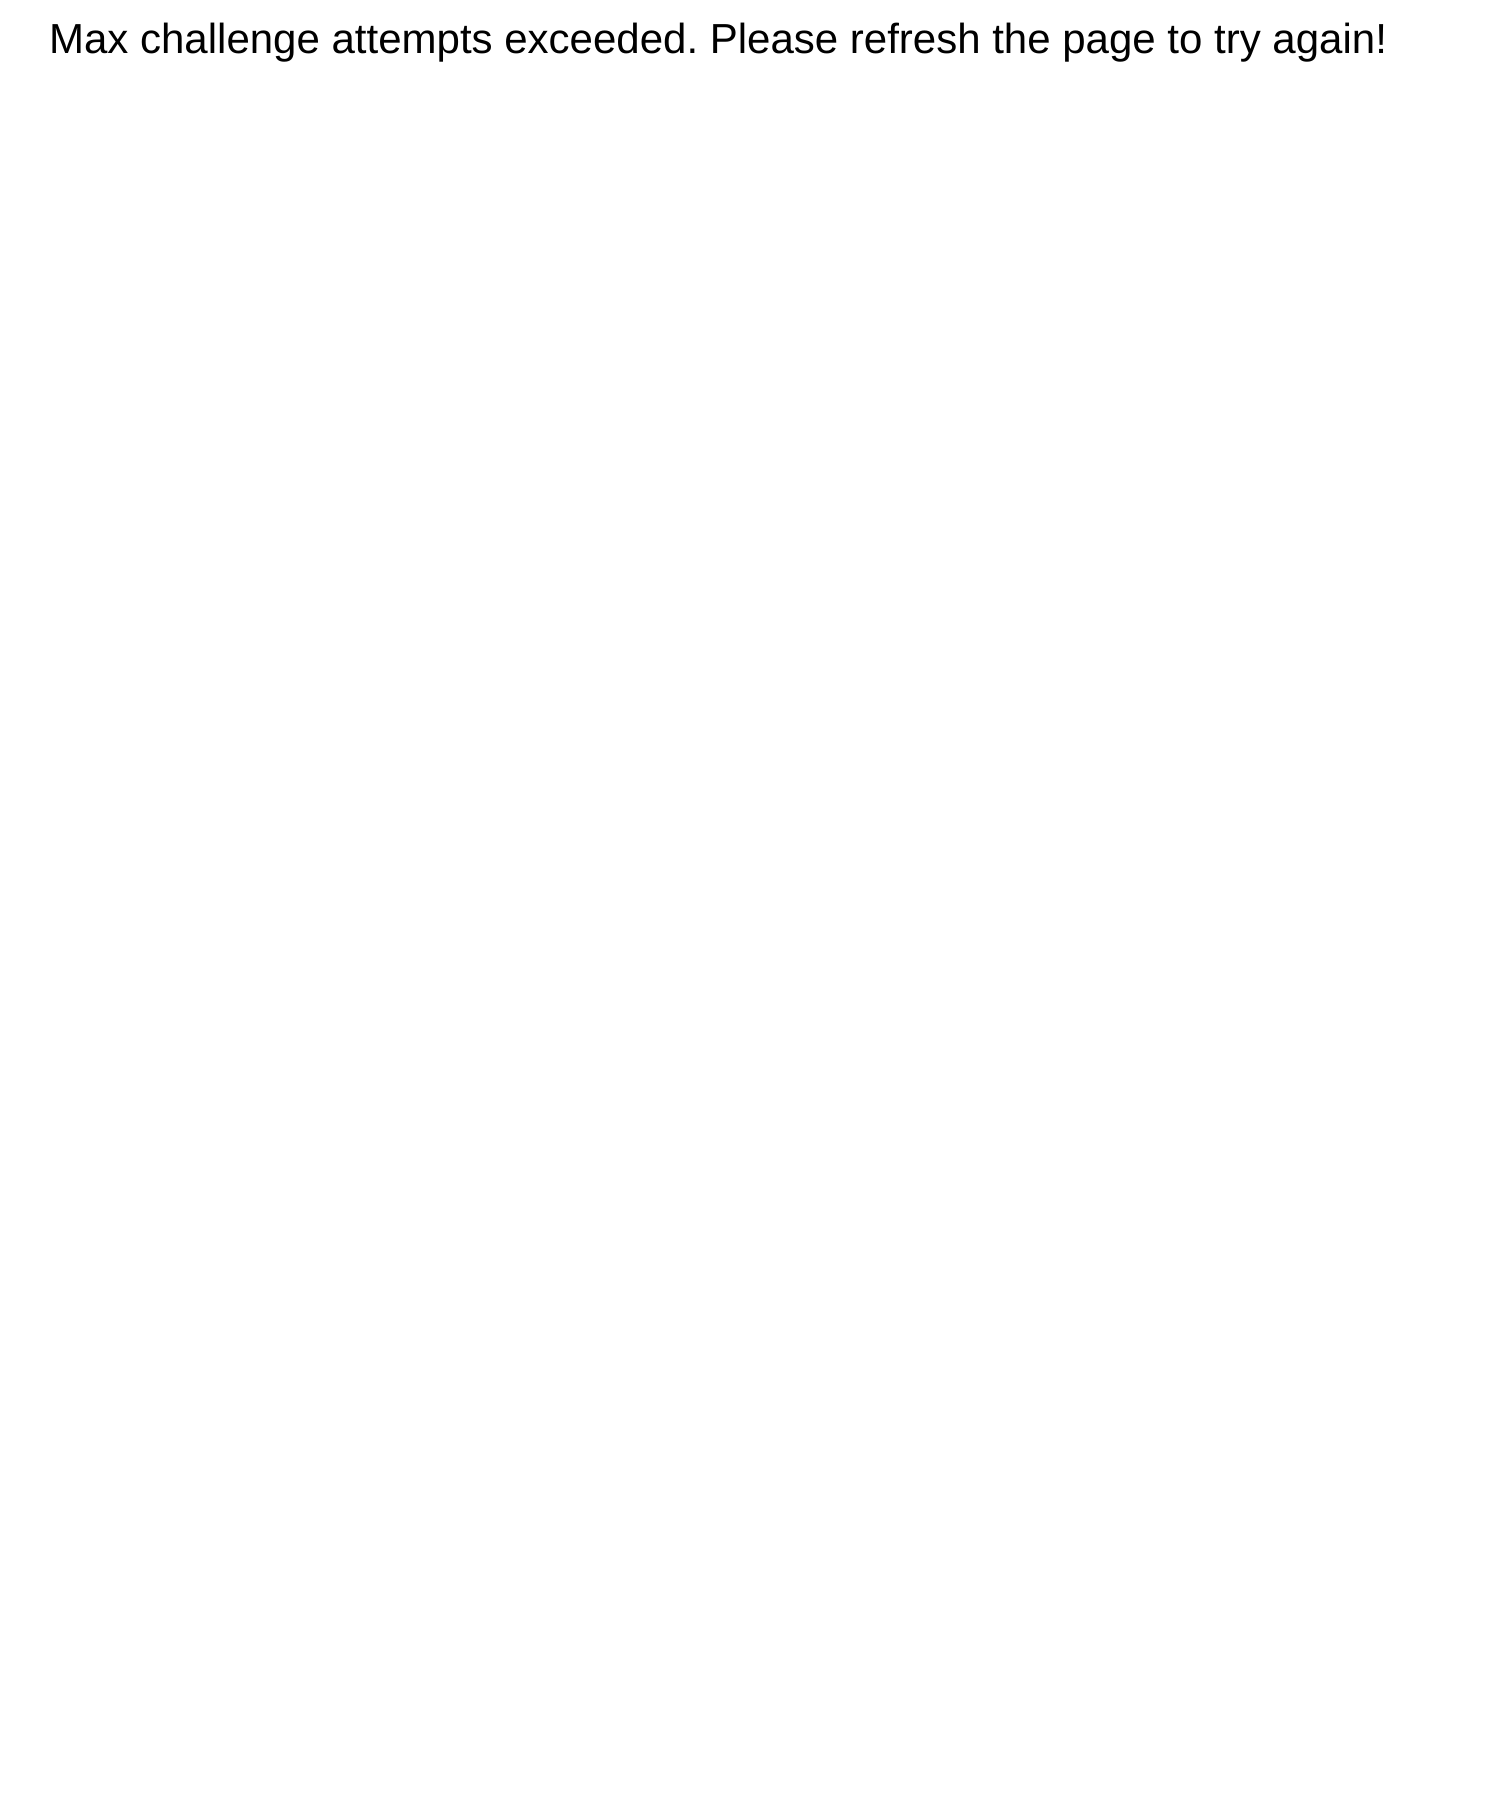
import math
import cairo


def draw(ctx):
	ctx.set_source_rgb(1, 1, 1)
	ctx.paint()
	ctx.select_font_face('Liberation Sans')
	ctx.set_font_size(42)
	ctx.set_source_rgb(0, 0, 0)
	ctx.move_to(49, 53)
	ctx.show_text('Max challenge attempts exceeded. Please refresh the page to try again!')


surface = cairo.ImageSurface(cairo.FORMAT_RGB24, 1502, 1797)
ctx = cairo.Context(surface)
options = cairo.FontOptions()
options.set_hint_metrics(cairo.HINT_METRICS_OFF)
options.set_hint_style(cairo.HINT_STYLE_NONE)
ctx.set_font_options(options)
ctx.set_miter_limit(4)
draw(ctx)
surface.write_to_png('image.png')
